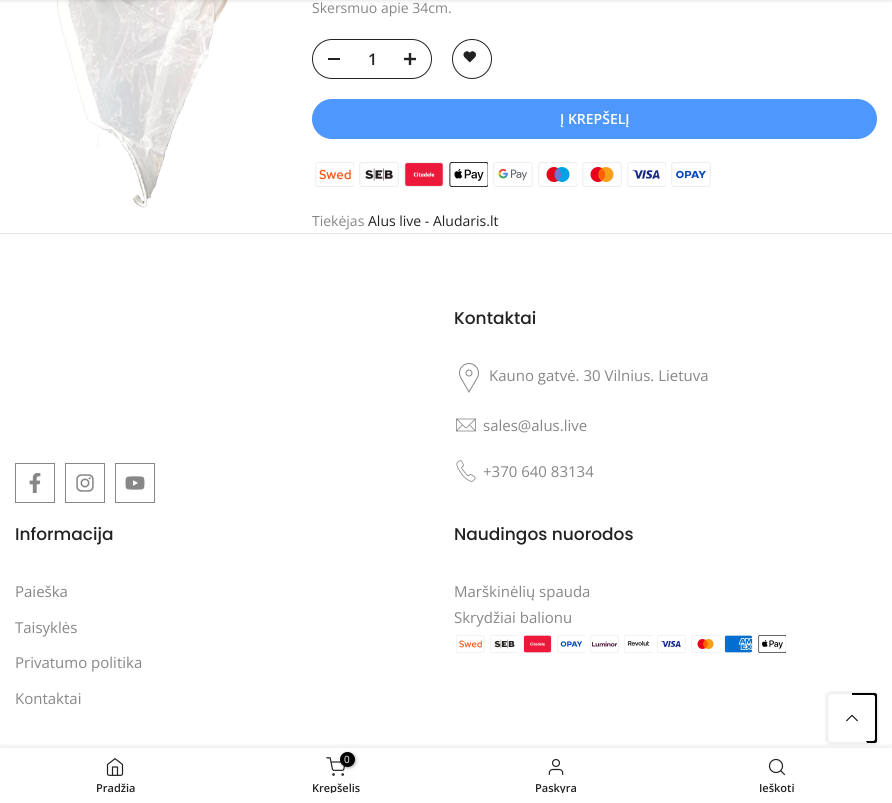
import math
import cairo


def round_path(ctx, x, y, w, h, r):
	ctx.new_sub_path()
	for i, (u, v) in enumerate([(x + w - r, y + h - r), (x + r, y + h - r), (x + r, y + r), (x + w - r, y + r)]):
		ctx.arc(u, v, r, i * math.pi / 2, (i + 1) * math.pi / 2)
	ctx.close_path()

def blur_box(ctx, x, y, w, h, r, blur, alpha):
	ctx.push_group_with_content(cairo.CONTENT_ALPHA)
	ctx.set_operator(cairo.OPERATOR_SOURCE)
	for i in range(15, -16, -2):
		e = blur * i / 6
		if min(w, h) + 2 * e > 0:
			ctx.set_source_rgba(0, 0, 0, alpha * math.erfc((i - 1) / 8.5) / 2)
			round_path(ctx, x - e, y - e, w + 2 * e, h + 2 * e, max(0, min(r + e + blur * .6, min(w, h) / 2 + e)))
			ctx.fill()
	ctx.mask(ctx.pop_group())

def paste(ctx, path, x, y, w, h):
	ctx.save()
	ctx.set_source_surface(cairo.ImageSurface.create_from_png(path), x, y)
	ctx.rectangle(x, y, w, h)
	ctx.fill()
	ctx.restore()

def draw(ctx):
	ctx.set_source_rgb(1, 1, 1)
	ctx.paint()
	paste(ctx, 'media/1.png', 57, 0, 171, 208)
	ctx.set_source_rgb(0, 0, 0)
	blur_box(ctx, 0, -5, 892, 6, 0, 1.5, 0.1)
	ctx.select_font_face('Open Sans')
	ctx.set_font_size(14)
	ctx.set_source_rgb(0.529, 0.529, 0.529)
	ctx.move_to(312, 13)
	ctx.show_text('Skersmuo apie 34cm.')
	round_path(ctx, 312.5, 39.5, 119, 39, 19.5)
	ctx.set_source_rgb(0.133, 0.133, 0.133)
	ctx.set_line_width(1)
	ctx.stroke()
	ctx.rectangle(328, 58, 12, 2)
	ctx.fill()
	ctx.select_font_face('Open Sans SemiBold')
	ctx.set_font_size(16)
	ctx.move_to(368, 65)
	ctx.show_text('1')
	paste(ctx, 'media/2.png', 404, 53, 12, 12)
	ctx.arc(472, 59, 19.5, 0, 2 * math.pi)
	ctx.stroke()
	paste(ctx, 'media/3.png', 463, 51, 13, 12)
	ctx.set_source_rgb(0.306, 0.592, 0.992)
	round_path(ctx, 312, 99, 565, 40, 20)
	ctx.fill()
	ctx.set_font_size(14)
	ctx.set_source_rgb(1, 1, 1)
	ctx.move_to(560, 124)
	ctx.show_text('Į KREPŠELĮ')
	paste(ctx, 'media/4.png', 315, 162, 39, 25)
	paste(ctx, 'media/5.png', 359, 162, 40, 25)
	paste(ctx, 'media/6.png', 404, 162, 40, 25)
	paste(ctx, 'media/7.png', 449, 162, 39, 25)
	paste(ctx, 'media/8.png', 493, 162, 40, 25)
	paste(ctx, 'media/9.png', 538, 162, 39, 25)
	paste(ctx, 'media/10.png', 582, 162, 40, 25)
	paste(ctx, 'media/11.png', 627, 162, 39, 25)
	paste(ctx, 'media/12.png', 671, 162, 40, 25)
	ctx.select_font_face('Open Sans')
	ctx.set_source_rgb(0.529, 0.529, 0.529)
	ctx.move_to(312, 226)
	ctx.show_text('Tiekėjas')
	ctx.set_source_rgb(0.133, 0.133, 0.133)
	ctx.move_to(368, 226)
	ctx.show_text('Alus live - Aludaris.lt')
	ctx.set_source_rgb(0.902, 0.902, 0.902)
	ctx.rectangle(0, 233, 892, 1)
	ctx.fill()
	ctx.select_font_face('Poppins Medium')
	ctx.set_font_size(17)
	ctx.set_source_rgb(0.133, 0.133, 0.133)
	ctx.move_to(454, 324)
	ctx.show_text('Kontaktai')
	paste(ctx, 'media/13.png', 459, 363, 20, 30)
	ctx.select_font_face('Open Sans')
	ctx.set_font_size(15)
	ctx.set_source_rgb(0.529, 0.529, 0.529)
	ctx.move_to(489, 381)
	ctx.show_text('Kauno gatvė. 30 Vilnius. Lietuva')
	paste(ctx, 'media/14.png', 456, 418, 20, 14)
	ctx.move_to(483, 431)
	ctx.show_text('sales@alus.live')
	paste(ctx, 'media/15.png', 456, 460, 20, 22)
	ctx.move_to(483, 477)
	ctx.show_text('+370 640 83134')
	ctx.rectangle(15.5, 463.5, 39, 39)
	ctx.stroke()
	paste(ctx, 'media/16.png', 29, 473, 12, 20)
	ctx.rectangle(65.5, 463.5, 39, 39)
	ctx.stroke()
	paste(ctx, 'media/17.png', 76, 474, 18, 18)
	ctx.rectangle(115.5, 463.5, 39, 39)
	ctx.stroke()
	paste(ctx, 'media/18.png', 125, 476, 20, 14)
	ctx.select_font_face('Poppins Medium')
	ctx.set_font_size(17)
	ctx.set_source_rgb(0.133, 0.133, 0.133)
	ctx.move_to(15, 540)
	ctx.show_text('Informacija')
	ctx.select_font_face('Open Sans')
	ctx.set_font_size(15)
	ctx.set_source_rgb(0.529, 0.529, 0.529)
	for x, y, s in [
		(15, 597, 'Paieška'),
		(15, 633, 'Taisyklės'),
		(15, 668, 'Privatumo politika'),
		(15, 704, 'Kontaktai'),
	]:
		ctx.move_to(x, y)
		ctx.show_text(s)
	ctx.select_font_face('Poppins Medium')
	ctx.set_font_size(17)
	ctx.set_source_rgb(0.133, 0.133, 0.133)
	ctx.move_to(454, 540)
	ctx.show_text('Naudingos nuorodos')
	ctx.select_font_face('Open Sans')
	ctx.set_font_size(15)
	ctx.set_source_rgb(0.529, 0.529, 0.529)
	ctx.move_to(454, 597)
	ctx.show_text('Marškinėlių spauda')
	ctx.move_to(454, 623)
	ctx.show_text('Skrydžiai balionu')
	paste(ctx, 'media/19.png', 456, 635, 29, 18)
	paste(ctx, 'media/20.png', 490, 635, 28, 18)
	paste(ctx, 'media/21.png', 523, 635, 29, 18)
	paste(ctx, 'media/22.png', 557, 635, 28, 18)
	paste(ctx, 'media/23.png', 590, 635, 29, 18)
	paste(ctx, 'media/24.png', 624, 635, 28, 18)
	paste(ctx, 'media/25.png', 657, 635, 29, 18)
	paste(ctx, 'media/26.png', 691, 635, 28, 18)
	paste(ctx, 'media/27.png', 724, 635, 29, 18)
	paste(ctx, 'media/28.png', 758, 635, 28, 18)
	ctx.set_source_rgb(0, 0, 0)
	blur_box(ctx, 827, 693, 50, 50, 3, 1.5, 0.2)
	ctx.save()
	ctx.rectangle(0, 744, 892, 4)
	ctx.clip()
	blur_box(ctx, 0, 748, 892, 55, 0, 4.5, 0.12)
	ctx.restore()
	ctx.set_source_rgb(0, 0, 0)
	ctx.new_path()
	ctx.move_to(852, 718)
	ctx.line_to(867, 743)
	ctx.line_to(875, 743)
	ctx.curve_to(876, 743, 877, 742, 877, 741)
	ctx.line_to(877, 695)
	ctx.curve_to(877, 694, 876, 693, 875, 693)
	ctx.line_to(852, 693)
	ctx.close_path()
	ctx.fill()
	ctx.set_source_rgb(0.961, 0.961, 0.961)
	ctx.new_path()
	ctx.move_to(852, 718)
	ctx.line_to(852, 693)
	ctx.line_to(829, 693)
	ctx.curve_to(828, 693, 827, 694, 827, 695)
	ctx.line_to(827, 741)
	ctx.curve_to(827, 742, 828, 743, 829, 743)
	ctx.line_to(867, 743)
	ctx.close_path()
	ctx.fill()
	ctx.set_source_rgb(1, 1, 1)
	round_path(ctx, 829, 695, 46, 46, 2)
	ctx.fill()
	paste(ctx, 'media/29.png', 846, 714, 12, 8)
	paste(ctx, 'media/30.png', 106, 758, 18, 18)
	ctx.select_font_face('Open Sans SemiBold')
	ctx.set_font_size(11)
	ctx.set_source_rgb(0.133, 0.133, 0.133)
	ctx.move_to(96, 792)
	ctx.show_text('Pradžia')
	paste(ctx, 'media/31.png', 326, 757, 19, 19)
	ctx.set_source_rgb(0, 0, 0)
	blur_box(ctx, 341, 753, 15, 15, 7.5, 1.5, 0.3)
	ctx.set_source_rgb(0, 0, 0)
	ctx.arc(347.5, 759.5, 7.5, 0, 2 * math.pi)
	ctx.fill()
	ctx.select_font_face('Open Sans')
	ctx.set_font_size(10)
	ctx.set_source_rgb(1, 1, 1)
	ctx.move_to(344, 763)
	ctx.show_text('0')
	ctx.save()
	ctx.rectangle(236, 782, 200, 11)
	ctx.clip()
	ctx.select_font_face('Open Sans SemiBold')
	ctx.set_font_size(11)
	ctx.set_source_rgb(0.133, 0.133, 0.133)
	ctx.move_to(312, 792)
	ctx.show_text('Krepšelis')
	ctx.restore()
	paste(ctx, 'media/32.png', 548, 758, 16, 18)
	ctx.save()
	ctx.rectangle(456, 782, 201, 11)
	ctx.clip()
	ctx.select_font_face('Open Sans SemiBold')
	ctx.set_font_size(11)
	ctx.set_source_rgb(0.133, 0.133, 0.133)
	ctx.move_to(535, 792)
	ctx.show_text('Paskyra')
	ctx.restore()
	ctx.new_path()
	ctx.arc(776, 766, 6.5, 0, 2 * math.pi)
	ctx.set_source_rgb(0.133, 0.133, 0.133)
	ctx.set_line_width(1.2)
	ctx.stroke()
	ctx.new_path()
	ctx.move_to(784.5, 774.5)
	ctx.line_to(781, 771)
	ctx.set_line_cap(cairo.LINE_CAP_ROUND)
	ctx.set_line_join(cairo.LINE_JOIN_ROUND)
	ctx.stroke()
	ctx.select_font_face('Open Sans SemiBold')
	ctx.set_font_size(11)
	ctx.move_to(759, 792)
	ctx.show_text('Ieškoti')


surface = cairo.ImageSurface(cairo.FORMAT_RGB24, 892, 803)
ctx = cairo.Context(surface)
options = cairo.FontOptions()
options.set_hint_metrics(cairo.HINT_METRICS_OFF)
options.set_hint_style(cairo.HINT_STYLE_NONE)
ctx.set_font_options(options)
ctx.set_miter_limit(4)
draw(ctx)
surface.write_to_png('image.png')
